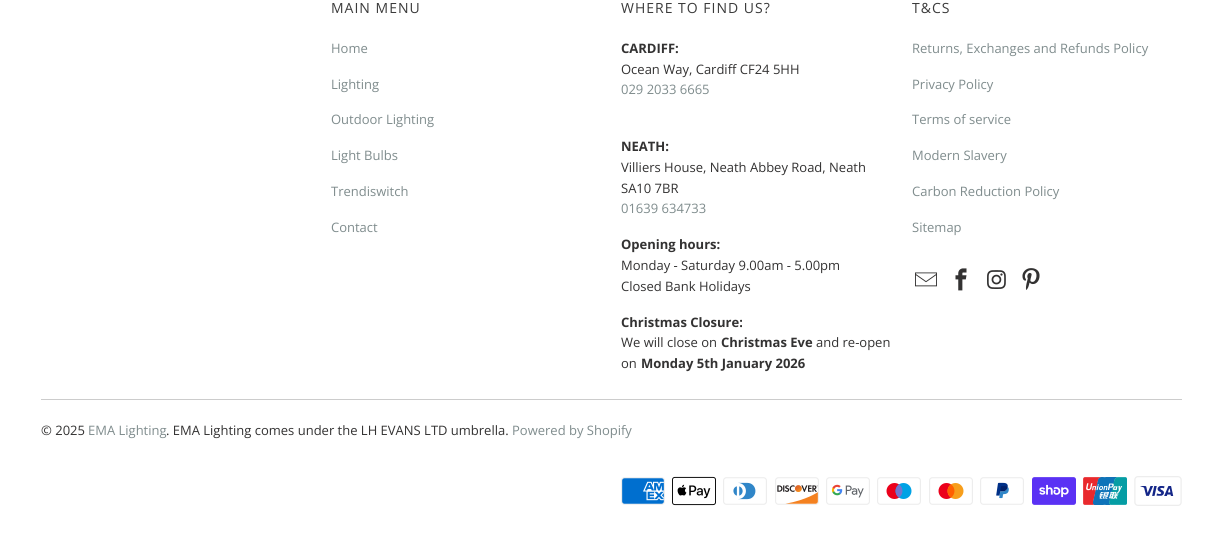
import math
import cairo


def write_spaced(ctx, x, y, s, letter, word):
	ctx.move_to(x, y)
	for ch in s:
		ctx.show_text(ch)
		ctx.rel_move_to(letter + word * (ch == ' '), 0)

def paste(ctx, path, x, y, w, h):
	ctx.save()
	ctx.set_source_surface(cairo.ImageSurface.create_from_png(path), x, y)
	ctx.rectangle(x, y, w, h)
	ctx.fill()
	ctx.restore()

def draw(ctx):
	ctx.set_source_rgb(1, 1, 1)
	ctx.paint()
	ctx.select_font_face('Open Sans')
	ctx.set_font_size(14)
	ctx.set_source_rgb(0.231, 0.231, 0.231)
	write_spaced(ctx, 331, 13, 'MAIN MENU', 1, 0)
	ctx.set_font_size(13)
	ctx.set_source_rgb(0.498, 0.549, 0.553)
	for x, y, s in [
		(331, 53, 'Home'),
		(331, 89, 'Lighting'),
		(331, 124, 'Outdoor Lighting'),
		(331, 160, 'Light Bulbs'),
		(331, 196, 'Trendiswitch'),
		(331, 232, 'Contact'),
	]:
		ctx.move_to(x, y)
		ctx.show_text(s)
	ctx.set_font_size(14)
	ctx.set_source_rgb(0.231, 0.231, 0.231)
	write_spaced(ctx, 621, 13, 'WHERE TO FIND US?', 1, 0)
	ctx.select_font_face('Open Sans', cairo.FONT_SLANT_NORMAL, cairo.FONT_WEIGHT_BOLD)
	ctx.set_font_size(13)
	ctx.set_source_rgb(0.2, 0.196, 0.196)
	ctx.move_to(621, 53)
	ctx.show_text('CARDIFF:')
	ctx.select_font_face('Open Sans')
	ctx.move_to(621, 74)
	ctx.show_text('Ocean Way, Cardiff CF24 5HH')
	ctx.set_source_rgb(0.498, 0.549, 0.553)
	ctx.move_to(621, 94)
	ctx.show_text('029 2033 6665')
	ctx.select_font_face('Open Sans', cairo.FONT_SLANT_NORMAL, cairo.FONT_WEIGHT_BOLD)
	ctx.set_source_rgb(0.2, 0.196, 0.196)
	ctx.move_to(621, 151)
	ctx.show_text('NEATH:')
	ctx.select_font_face('Open Sans')
	ctx.move_to(621, 172)
	ctx.show_text('Villiers House, Neath Abbey Road, Neath')
	ctx.move_to(621, 193)
	ctx.show_text('SA10 7BR')
	ctx.set_source_rgb(0.498, 0.549, 0.553)
	ctx.move_to(621, 213)
	ctx.show_text('01639 634733')
	ctx.select_font_face('Open Sans', cairo.FONT_SLANT_NORMAL, cairo.FONT_WEIGHT_BOLD)
	ctx.set_source_rgb(0.2, 0.196, 0.196)
	ctx.move_to(621, 249)
	ctx.show_text('Opening hours:')
	ctx.select_font_face('Open Sans')
	ctx.move_to(621, 270)
	ctx.show_text('Monday - Saturday 9.00am - 5.00pm')
	ctx.move_to(621, 291)
	ctx.show_text('Closed Bank Holidays')
	ctx.select_font_face('Open Sans', cairo.FONT_SLANT_NORMAL, cairo.FONT_WEIGHT_BOLD)
	ctx.move_to(621, 327)
	ctx.show_text('Christmas Closure:')
	ctx.select_font_face('Open Sans')
	ctx.move_to(621, 347)
	ctx.show_text('We will close on')
	ctx.select_font_face('Open Sans', cairo.FONT_SLANT_NORMAL, cairo.FONT_WEIGHT_BOLD)
	ctx.move_to(721, 347)
	ctx.show_text('Christmas Eve')
	ctx.select_font_face('Open Sans')
	ctx.move_to(816, 347)
	ctx.show_text('and re-open')
	ctx.move_to(621, 368)
	ctx.show_text('on')
	ctx.select_font_face('Open Sans', cairo.FONT_SLANT_NORMAL, cairo.FONT_WEIGHT_BOLD)
	ctx.move_to(641, 368)
	ctx.show_text('Monday 5th January 2026')
	ctx.select_font_face('Open Sans')
	ctx.set_font_size(14)
	ctx.set_source_rgb(0.231, 0.231, 0.231)
	write_spaced(ctx, 912, 13, 'T&CS', 1, 0)
	ctx.set_font_size(13)
	ctx.set_source_rgb(0.498, 0.549, 0.553)
	for x, y, s in [
		(912, 53, 'Returns, Exchanges and Refunds Policy'),
		(912, 89, 'Privacy Policy'),
		(912, 124, 'Terms of service'),
		(912, 160, 'Modern Slavery'),
		(912, 196, 'Carbon Reduction Policy'),
		(912, 232, 'Sitemap'),
	]:
		ctx.move_to(x, y)
		ctx.show_text(s)
	paste(ctx, 'media/1.png', 915, 272, 22, 15)
	paste(ctx, 'media/2.png', 955, 268, 12, 23)
	paste(ctx, 'media/3.png', 987, 270, 19, 19)
	paste(ctx, 'media/4.png', 1022, 268, 18, 22)
	ctx.set_source_rgb(0.8, 0.8, 0.8)
	ctx.rectangle(41, 399, 1141, 1)
	ctx.fill()
	ctx.set_source_rgb(0.2, 0.196, 0.196)
	ctx.move_to(41, 435)
	ctx.show_text('© 2025')
	ctx.set_source_rgb(0.498, 0.549, 0.553)
	ctx.move_to(88, 435)
	ctx.show_text('EMA Lighting')
	ctx.set_source_rgb(0.2, 0.196, 0.196)
	ctx.move_to(166, 435)
	ctx.show_text('. EMA Lighting comes under the LH EVANS LTD umbrella.')
	ctx.set_source_rgb(0.498, 0.549, 0.553)
	ctx.move_to(512, 435)
	ctx.show_text('Powered by Shopify')
	paste(ctx, 'media/5.png', 621, 477, 44, 28)
	paste(ctx, 'media/6.png', 672, 476, 44, 30)
	paste(ctx, 'media/7.png', 723, 477, 44, 28)
	paste(ctx, 'media/8.png', 775, 477, 44, 28)
	paste(ctx, 'media/9.png', 826, 477, 44, 28)
	paste(ctx, 'media/10.png', 877, 477, 44, 28)
	paste(ctx, 'media/11.png', 929, 477, 44, 28)
	paste(ctx, 'media/12.png', 980, 477, 44, 28)
	paste(ctx, 'media/13.png', 1032, 477, 44, 28)
	paste(ctx, 'media/14.png', 1083, 477, 44, 28)
	paste(ctx, 'media/15.png', 1134, 476, 48, 30)


surface = cairo.ImageSurface(cairo.FORMAT_RGB24, 1223, 538)
ctx = cairo.Context(surface)
options = cairo.FontOptions()
options.set_hint_metrics(cairo.HINT_METRICS_OFF)
options.set_hint_style(cairo.HINT_STYLE_NONE)
ctx.set_font_options(options)
ctx.set_miter_limit(4)
draw(ctx)
surface.write_to_png('image.png')
